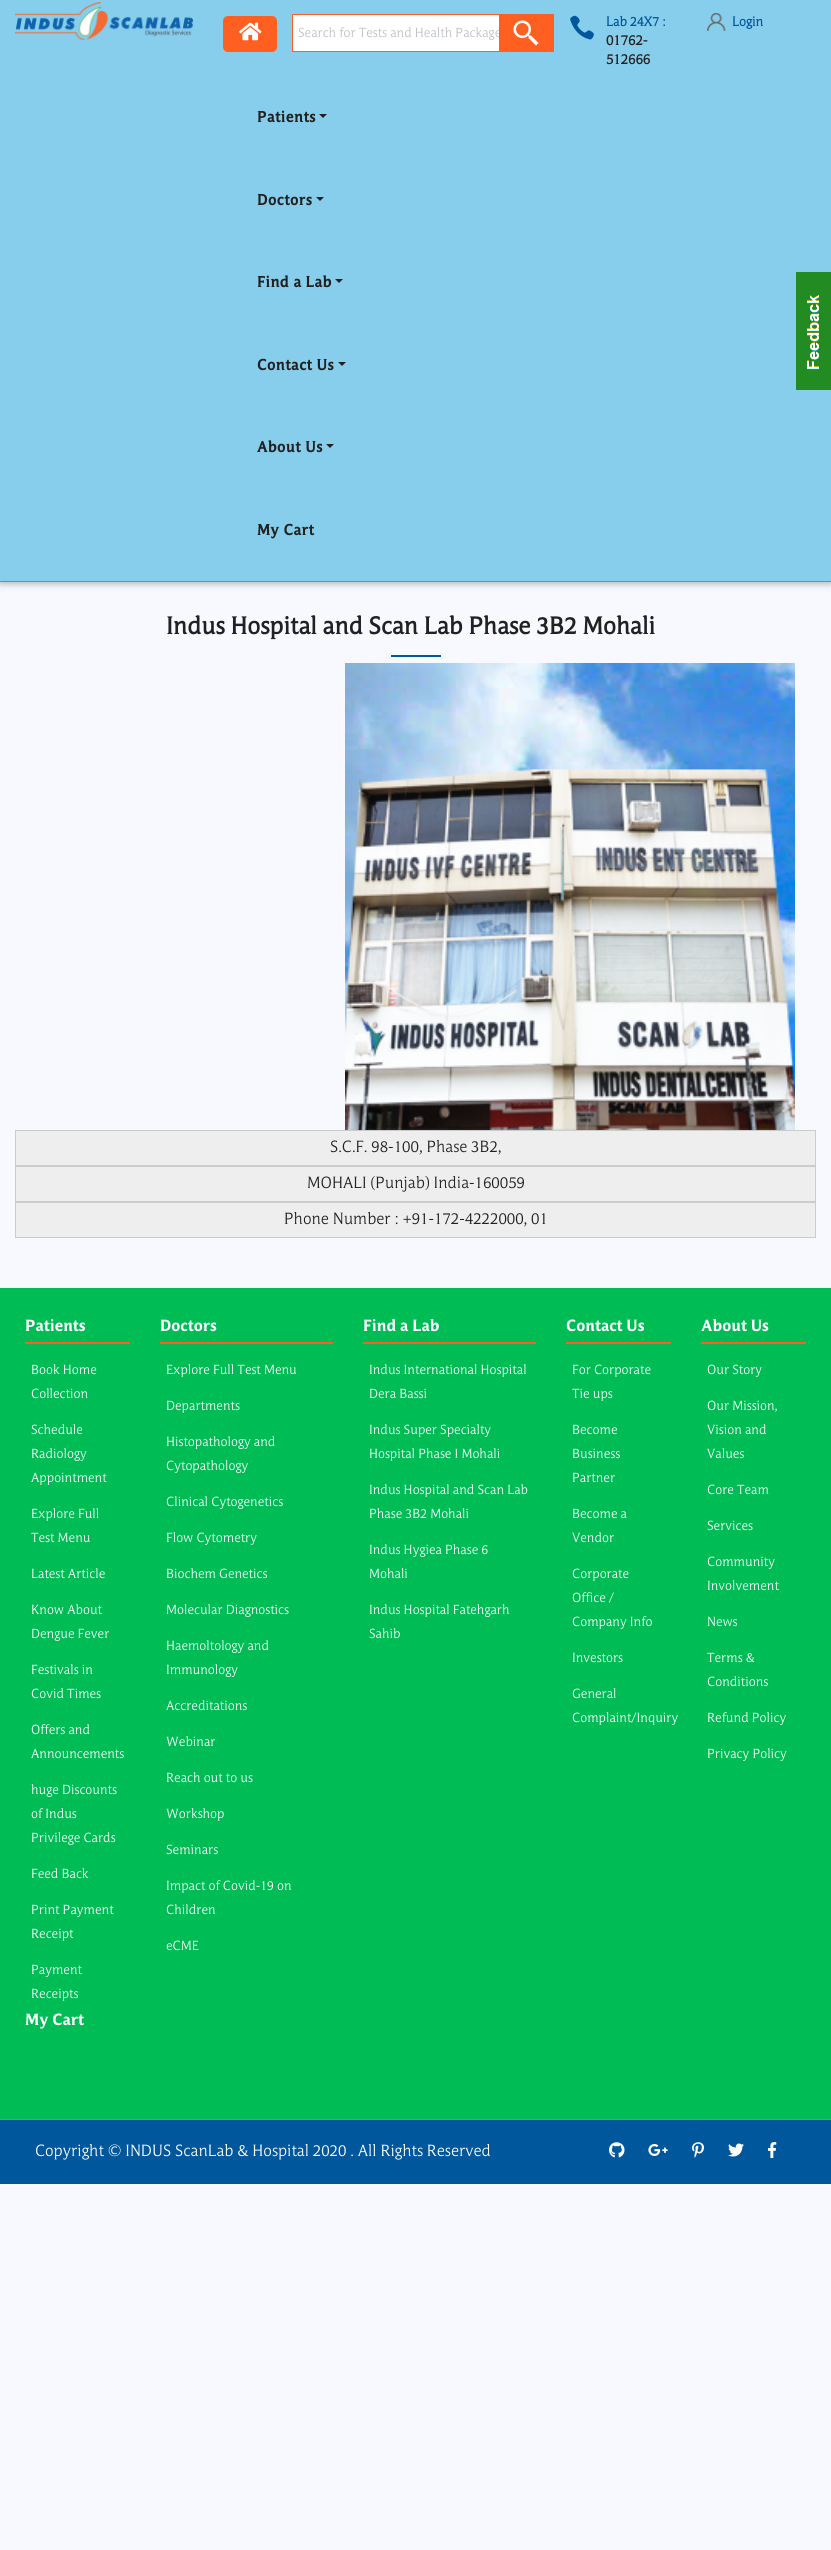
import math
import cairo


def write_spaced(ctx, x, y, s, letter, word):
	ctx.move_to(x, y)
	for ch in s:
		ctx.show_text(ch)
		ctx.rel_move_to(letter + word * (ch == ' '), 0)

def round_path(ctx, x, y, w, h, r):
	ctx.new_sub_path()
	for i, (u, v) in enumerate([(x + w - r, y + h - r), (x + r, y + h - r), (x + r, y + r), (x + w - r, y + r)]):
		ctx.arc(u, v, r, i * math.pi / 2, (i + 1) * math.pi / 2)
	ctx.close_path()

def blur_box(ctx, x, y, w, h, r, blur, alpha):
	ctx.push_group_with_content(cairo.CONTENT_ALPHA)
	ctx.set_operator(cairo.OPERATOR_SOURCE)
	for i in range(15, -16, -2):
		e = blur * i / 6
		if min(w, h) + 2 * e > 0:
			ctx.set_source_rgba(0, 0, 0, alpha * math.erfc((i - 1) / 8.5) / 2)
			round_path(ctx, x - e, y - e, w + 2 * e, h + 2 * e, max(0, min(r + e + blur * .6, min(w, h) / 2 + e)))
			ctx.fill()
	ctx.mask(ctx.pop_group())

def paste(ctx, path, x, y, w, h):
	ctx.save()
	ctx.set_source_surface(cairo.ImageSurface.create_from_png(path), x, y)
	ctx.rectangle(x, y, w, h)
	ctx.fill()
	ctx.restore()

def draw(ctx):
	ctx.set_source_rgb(0.969, 0.969, 1)
	ctx.paint()
	ctx.set_source_rgb(0, 0, 0)
	blur_box(ctx, 0, 2, 831, 582, 0, 5, 0.12)
	blur_box(ctx, 0, 2, 831, 582, 0, 2.5, 0.16)
	ctx.set_source_rgb(0.529, 0.808, 0.922)
	ctx.rectangle(0, 0, 831, 581)
	ctx.fill()
	ctx.set_source_rgb(1, 0.376, 0.129)
	ctx.rectangle(0, 581, 831, 1)
	ctx.fill()
	paste(ctx, 'media/1.png', 15, 2, 178, 38)
	round_path(ctx, 223, 16, 54, 36, 5)
	ctx.fill()
	paste(ctx, 'media/2.png', 239, 22, 23, 19)
	paste(ctx, 'media/3.png', 570, 15, 24, 25)
	ctx.select_font_face('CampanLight', cairo.FONT_SLANT_NORMAL, cairo.FONT_WEIGHT_BOLD)
	ctx.set_font_size(13)
	ctx.set_source_rgb(0, 0.341, 0.612)
	ctx.move_to(606, 26)
	ctx.show_text('Lab 24X7 :')
	ctx.set_font_size(14)
	ctx.set_source_rgb(0.129, 0.129, 0.129)
	ctx.move_to(606, 45)
	ctx.show_text('01762-')
	ctx.move_to(606, 64)
	ctx.show_text('512666')
	paste(ctx, 'media/4.png', 707, 13, 19, 18)
	ctx.set_font_size(13)
	ctx.set_source_rgb(0, 0.341, 0.612)
	ctx.move_to(732, 26)
	ctx.show_text('Login')
	ctx.set_source_rgb(1, 1, 1)
	ctx.rectangle(293, 15, 206, 36)
	ctx.fill()
	ctx.rectangle(292.5, 14.5, 246, 37)
	ctx.set_source_rgb(1, 0.376, 0.129)
	ctx.set_line_width(1)
	ctx.stroke()
	ctx.select_font_face('CampanLight Light')
	ctx.set_source_rgb(0.729, 0.749, 0.773)
	ctx.move_to(298, 37)
	ctx.show_text('Search for Tests and Health Package')
	ctx.set_source_rgb(1, 0.376, 0.129)
	ctx.rectangle(499, 14, 55, 38)
	ctx.fill()
	paste(ctx, 'media/5.png', 513, 20, 26, 26)
	ctx.select_font_face('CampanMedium', cairo.FONT_SLANT_NORMAL, cairo.FONT_WEIGHT_BOLD)
	ctx.set_font_size(15)
	ctx.set_source_rgb(0.129, 0.129, 0.129)
	write_spaced(ctx, 257, 122, 'Patients', 0.5, 0)
	ctx.new_path()
	ctx.move_to(319, 114)
	ctx.line_to(327, 114)
	ctx.line_to(323, 118)
	ctx.close_path()
	ctx.fill()
	write_spaced(ctx, 257, 205, 'Doctors', 0.5, 0)
	ctx.new_path()
	ctx.move_to(316, 197)
	ctx.line_to(324, 197)
	ctx.line_to(320, 201)
	ctx.close_path()
	ctx.fill()
	write_spaced(ctx, 257, 287, 'Find a Lab', 0.5, 0)
	ctx.new_path()
	ctx.move_to(335, 279)
	ctx.line_to(343, 279)
	ctx.line_to(339, 283)
	ctx.close_path()
	ctx.fill()
	write_spaced(ctx, 257, 370, 'Contact Us', 0.5, 0)
	ctx.new_path()
	ctx.move_to(338, 362)
	ctx.line_to(346, 362)
	ctx.line_to(342, 366)
	ctx.close_path()
	ctx.fill()
	write_spaced(ctx, 257, 452, 'About Us', 0.5, 0)
	ctx.new_path()
	ctx.move_to(326, 444)
	ctx.line_to(334, 444)
	ctx.line_to(330, 448)
	ctx.close_path()
	ctx.fill()
	write_spaced(ctx, 257, 535, 'My Cart', 0.5, 0)
	paste(ctx, 'media/6.png', 796, 272, 35, 118)
	ctx.select_font_face('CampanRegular', cairo.FONT_SLANT_NORMAL, cairo.FONT_WEIGHT_BOLD)
	ctx.set_font_size(24)
	ctx.move_to(166, 634)
	ctx.show_text('Indus Hospital and Scan Lab Phase 3B2 Mohali')
	ctx.set_source_rgb(0, 0.341, 0.612)
	ctx.rectangle(391, 655, 50, 2)
	ctx.fill()
	paste(ctx, 'media/7.png', 345, 663, 450, 467)
	ctx.set_source_rgb(0.933, 0.933, 0.933)
	ctx.rectangle(15.5, 1130.5, 800, 35)
	ctx.fill_preserve()
	ctx.set_source_rgb(0.8, 0.8, 0.8)
	ctx.stroke()
	ctx.select_font_face('CampanLight Light')
	ctx.set_font_size(16)
	ctx.set_source_rgb(0.129, 0.129, 0.129)
	ctx.move_to(330, 1152)
	ctx.show_text('S.C.F. 98-100, Phase 3B2,')
	ctx.set_source_rgb(0.933, 0.933, 0.933)
	ctx.rectangle(15.5, 1166.5, 800, 35)
	ctx.fill_preserve()
	ctx.set_source_rgb(0.8, 0.8, 0.8)
	ctx.stroke()
	ctx.set_source_rgb(0.129, 0.129, 0.129)
	ctx.move_to(307, 1188)
	ctx.show_text('MOHALI (Punjab) India-160059')
	ctx.set_source_rgb(0.933, 0.933, 0.933)
	ctx.rectangle(15.5, 1202.5, 800, 35)
	ctx.fill_preserve()
	ctx.set_source_rgb(0.8, 0.8, 0.8)
	ctx.stroke()
	ctx.set_source_rgb(0.129, 0.129, 0.129)
	ctx.move_to(284, 1224)
	ctx.show_text('Phone Number : +91-172-4222000, 01')
	ctx.set_source_rgb(0, 0.737, 0.333)
	ctx.rectangle(0, 1288, 831, 831)
	ctx.fill()
	ctx.set_source_rgb(1, 0.376, 0.129)
	ctx.rectangle(25, 1342, 105, 2)
	ctx.fill()
	ctx.select_font_face('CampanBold', cairo.FONT_SLANT_NORMAL, cairo.FONT_WEIGHT_BOLD)
	ctx.set_source_rgb(1, 1, 1)
	ctx.move_to(25, 1331)
	ctx.show_text('Patients')
	ctx.select_font_face('CampanLight Light')
	ctx.set_font_size(13)
	for x, y, s in [
		(31, 1374, 'Book Home'),
		(31, 1398, 'Collection'),
		(31, 1434, 'Schedule'),
		(31, 1458, 'Radiology'),
		(31, 1482, 'Appointment'),
		(31, 1518, 'Explore Full'),
		(31, 1542, 'Test Menu'),
		(31, 1578, 'Latest Article'),
		(31, 1614, 'Know About'),
		(31, 1638, 'Dengue Fever'),
		(31, 1674, 'Festivals in'),
		(31, 1698, 'Covid Times'),
		(31, 1734, 'Offers and'),
		(31, 1758, 'Announcements'),
		(31, 1794, 'huge Discounts'),
		(31, 1818, 'of Indus'),
		(31, 1842, 'Privilege Cards'),
		(31, 1878, 'Feed Back'),
		(31, 1914, 'Print Payment'),
		(31, 1938, 'Receipt'),
		(31, 1974, 'Payment'),
		(31, 1998, 'Receipts'),
	]:
		ctx.move_to(x, y)
		ctx.show_text(s)
	ctx.set_source_rgb(1, 0.376, 0.129)
	ctx.rectangle(160, 1342, 173, 2)
	ctx.fill()
	ctx.select_font_face('CampanBold', cairo.FONT_SLANT_NORMAL, cairo.FONT_WEIGHT_BOLD)
	ctx.set_font_size(16)
	ctx.set_source_rgb(1, 1, 1)
	ctx.move_to(160, 1331)
	ctx.show_text('Doctors')
	ctx.select_font_face('CampanLight Light')
	ctx.set_font_size(13)
	for x, y, s in [
		(166, 1374, 'Explore Full Test Menu'),
		(166, 1410, 'Departments'),
		(166, 1446, 'Histopathology and'),
		(166, 1470, 'Cytopathology'),
		(166, 1506, 'Clinical Cytogenetics'),
		(166, 1542, 'Flow Cytometry'),
		(166, 1578, 'Biochem Genetics'),
		(166, 1614, 'Molecular Diagnostics'),
		(166, 1650, 'Haemoltology and'),
		(166, 1674, 'Immunology'),
		(166, 1710, 'Accreditations'),
		(166, 1746, 'Webinar'),
		(166, 1782, 'Reach out to us'),
		(166, 1818, 'Workshop'),
		(166, 1854, 'Seminars'),
		(166, 1890, 'Impact of Covid-19 on'),
		(166, 1914, 'Children'),
		(166, 1950, 'eCME'),
	]:
		ctx.move_to(x, y)
		ctx.show_text(s)
	ctx.set_source_rgb(1, 0.376, 0.129)
	ctx.rectangle(363, 1342, 173, 2)
	ctx.fill()
	ctx.select_font_face('CampanBold', cairo.FONT_SLANT_NORMAL, cairo.FONT_WEIGHT_BOLD)
	ctx.set_font_size(16)
	ctx.set_source_rgb(1, 1, 1)
	ctx.move_to(363, 1331)
	ctx.show_text('Find a Lab')
	ctx.select_font_face('CampanLight Light')
	ctx.set_font_size(13)
	for x, y, s in [
		(369, 1374, 'Indus International Hospital'),
		(369, 1398, 'Dera Bassi'),
		(369, 1434, 'Indus Super Specialty'),
		(369, 1458, 'Hospital Phase I Mohali'),
		(369, 1494, 'Indus Hospital and Scan Lab'),
		(369, 1518, 'Phase 3B2 Mohali'),
		(369, 1554, 'Indus Hygiea Phase 6'),
		(369, 1578, 'Mohali'),
		(369, 1614, 'Indus Hospital Fatehgarh'),
		(369, 1638, 'Sahib'),
	]:
		ctx.move_to(x, y)
		ctx.show_text(s)
	ctx.set_source_rgb(1, 0.376, 0.129)
	ctx.rectangle(566, 1342, 105, 2)
	ctx.fill()
	ctx.select_font_face('CampanBold', cairo.FONT_SLANT_NORMAL, cairo.FONT_WEIGHT_BOLD)
	ctx.set_font_size(16)
	ctx.set_source_rgb(1, 1, 1)
	ctx.move_to(566, 1331)
	ctx.show_text('Contact Us')
	ctx.select_font_face('CampanLight Light')
	ctx.set_font_size(13)
	for x, y, s in [
		(572, 1374, 'For Corporate'),
		(572, 1398, 'Tie ups'),
		(572, 1434, 'Become'),
		(572, 1458, 'Business'),
		(572, 1482, 'Partner'),
		(572, 1518, 'Become a'),
		(572, 1542, 'Vendor'),
		(572, 1578, 'Corporate'),
		(572, 1602, 'Office /'),
		(572, 1626, 'Company Info'),
		(572, 1662, 'Investors'),
		(572, 1698, 'General'),
		(572, 1722, 'Complaint/Inquiry'),
	]:
		ctx.move_to(x, y)
		ctx.show_text(s)
	ctx.set_source_rgb(1, 0.376, 0.129)
	ctx.rectangle(701, 1342, 105, 2)
	ctx.fill()
	ctx.select_font_face('CampanBold', cairo.FONT_SLANT_NORMAL, cairo.FONT_WEIGHT_BOLD)
	ctx.set_font_size(16)
	ctx.set_source_rgb(1, 1, 1)
	ctx.move_to(701, 1331)
	ctx.show_text('About Us')
	ctx.select_font_face('CampanLight Light')
	ctx.set_font_size(13)
	for x, y, s in [
		(707, 1374, 'Our Story'),
		(707, 1410, 'Our Mission,'),
		(707, 1434, 'Vision and'),
		(707, 1458, 'Values'),
		(707, 1494, 'Core Team'),
		(707, 1530, 'Services'),
		(707, 1566, 'Community'),
		(707, 1590, 'Involvement'),
		(707, 1626, 'News'),
		(707, 1662, 'Terms &'),
		(707, 1686, 'Conditions'),
		(707, 1722, 'Refund Policy'),
		(707, 1758, 'Privacy Policy'),
	]:
		ctx.move_to(x, y)
		ctx.show_text(s)
	ctx.select_font_face('CampanBold', cairo.FONT_SLANT_NORMAL, cairo.FONT_WEIGHT_BOLD)
	ctx.set_font_size(16)
	ctx.move_to(25, 2025)
	ctx.show_text('My Cart')
	ctx.set_source_rgb(0, 0.341, 0.612)
	ctx.rectangle(0, 2120, 831, 64)
	ctx.fill()
	ctx.set_source_rgb(1, 0.376, 0.129)
	ctx.rectangle(0, 2119, 831, 1)
	ctx.fill()
	ctx.select_font_face('CampanLight Light')
	ctx.set_source_rgb(1, 1, 1)
	ctx.move_to(35, 2156)
	ctx.show_text('Copyright © INDUS ScanLab & Hospital 2020 . All Rights Reserved')
	paste(ctx, 'media/8.png', 609, 2142, 16, 16)
	paste(ctx, 'media/9.png', 648, 2144, 20, 12)
	paste(ctx, 'media/10.png', 692, 2142, 12, 16)
	paste(ctx, 'media/11.png', 728, 2143, 16, 14)
	paste(ctx, 'media/12.png', 768, 2142, 9, 16)


surface = cairo.ImageSurface(cairo.FORMAT_RGB24, 831, 2550)
ctx = cairo.Context(surface)
options = cairo.FontOptions()
options.set_hint_metrics(cairo.HINT_METRICS_OFF)
options.set_hint_style(cairo.HINT_STYLE_NONE)
ctx.set_font_options(options)
ctx.set_miter_limit(4)
draw(ctx)
surface.write_to_png('image.png')
